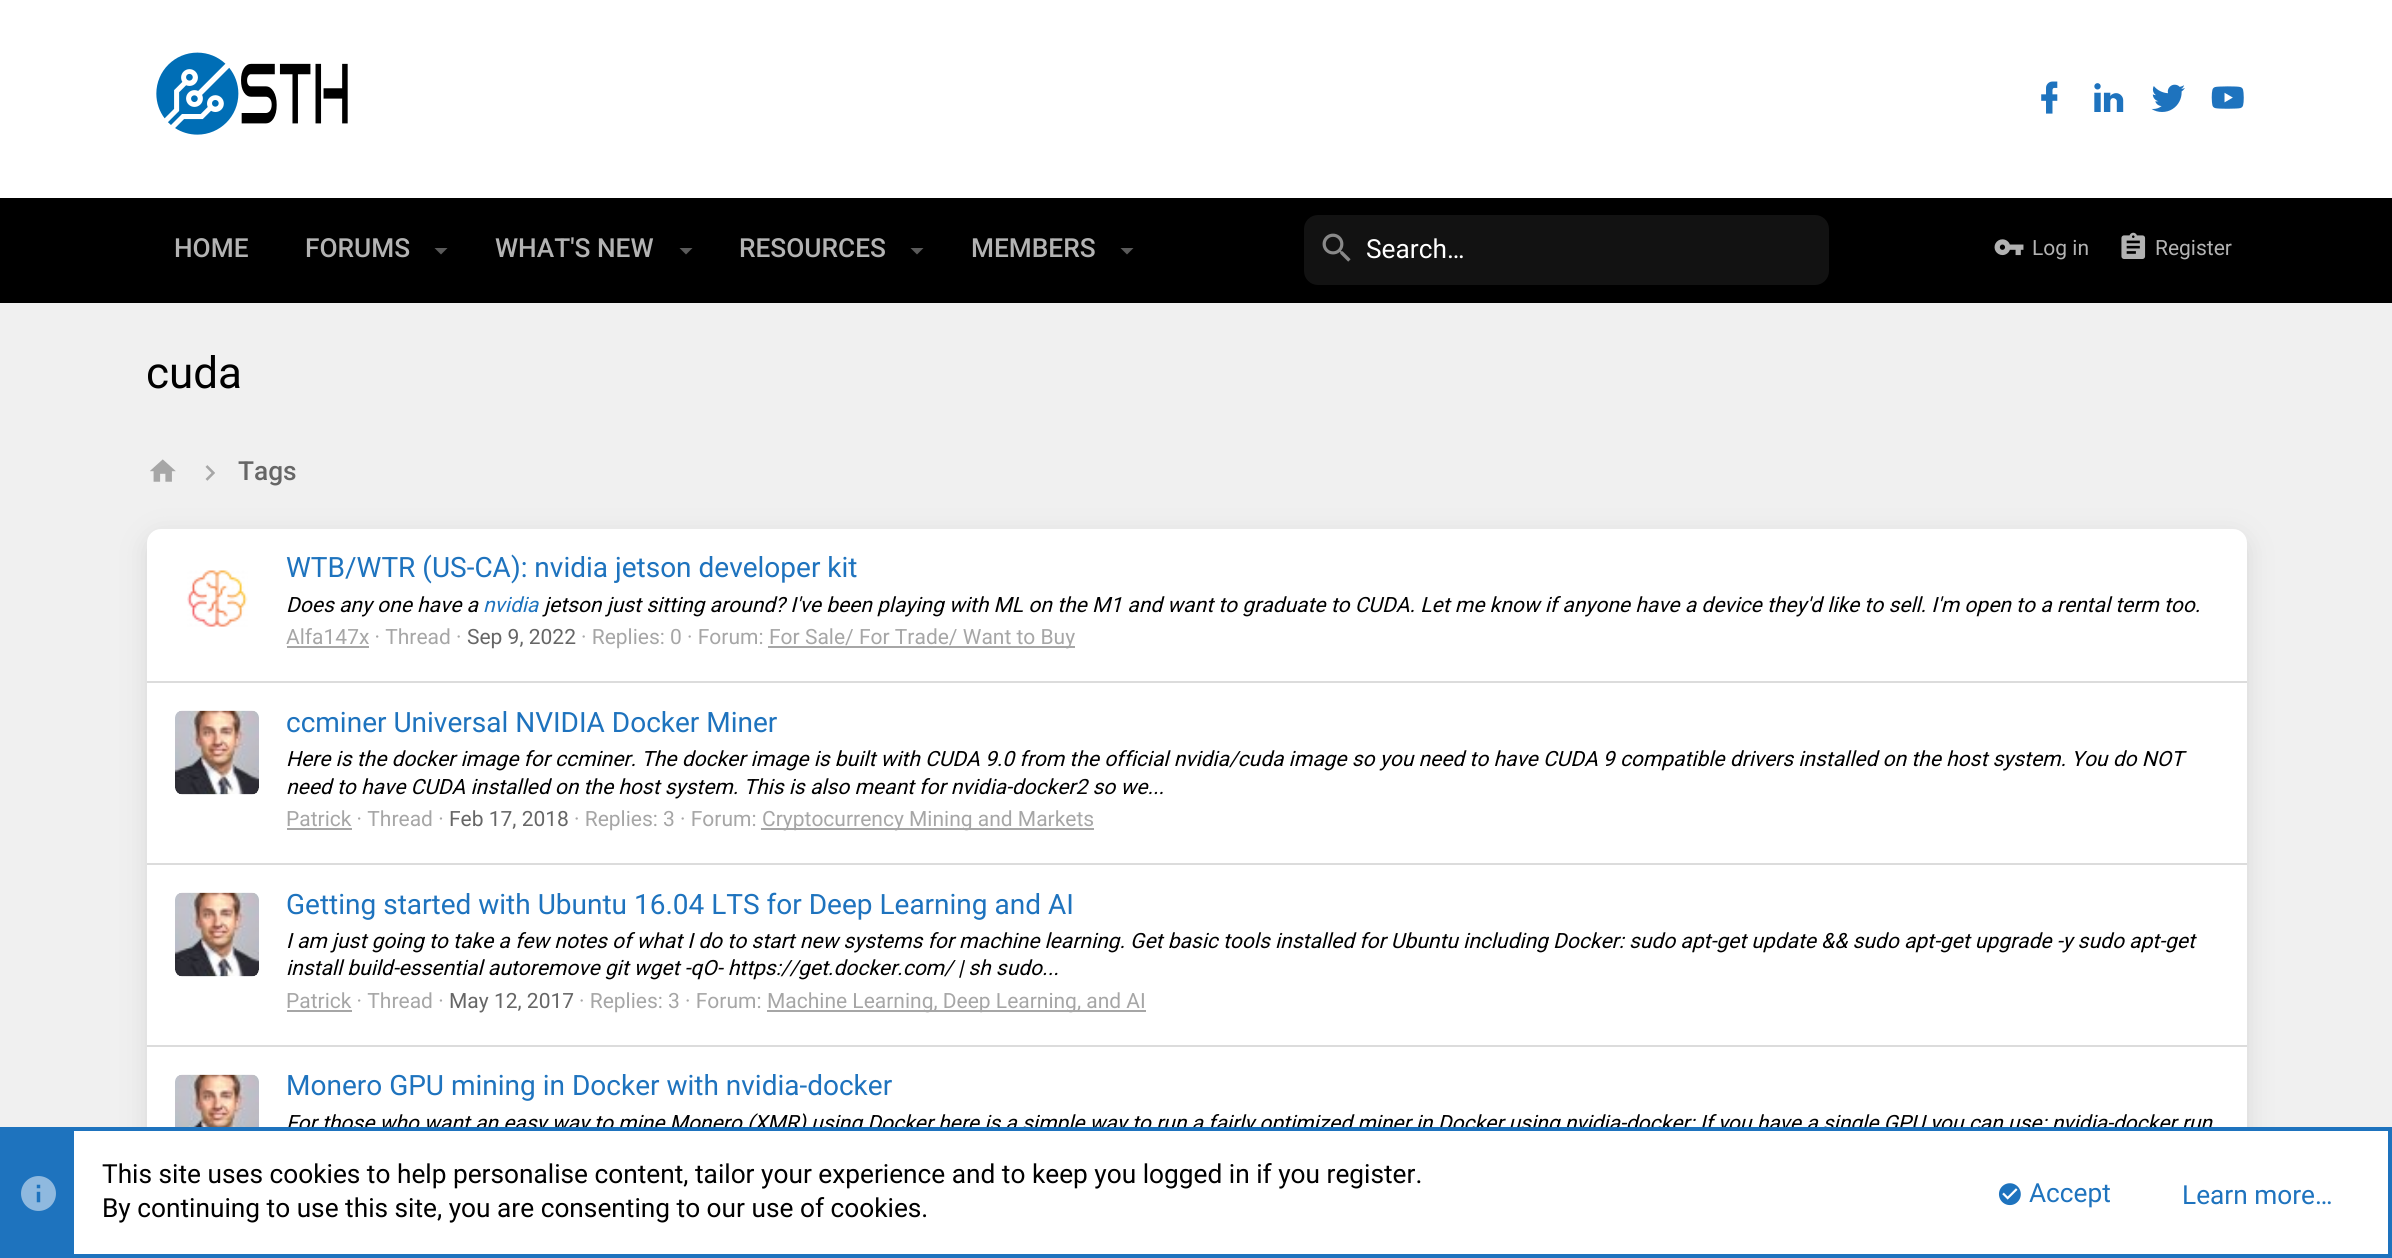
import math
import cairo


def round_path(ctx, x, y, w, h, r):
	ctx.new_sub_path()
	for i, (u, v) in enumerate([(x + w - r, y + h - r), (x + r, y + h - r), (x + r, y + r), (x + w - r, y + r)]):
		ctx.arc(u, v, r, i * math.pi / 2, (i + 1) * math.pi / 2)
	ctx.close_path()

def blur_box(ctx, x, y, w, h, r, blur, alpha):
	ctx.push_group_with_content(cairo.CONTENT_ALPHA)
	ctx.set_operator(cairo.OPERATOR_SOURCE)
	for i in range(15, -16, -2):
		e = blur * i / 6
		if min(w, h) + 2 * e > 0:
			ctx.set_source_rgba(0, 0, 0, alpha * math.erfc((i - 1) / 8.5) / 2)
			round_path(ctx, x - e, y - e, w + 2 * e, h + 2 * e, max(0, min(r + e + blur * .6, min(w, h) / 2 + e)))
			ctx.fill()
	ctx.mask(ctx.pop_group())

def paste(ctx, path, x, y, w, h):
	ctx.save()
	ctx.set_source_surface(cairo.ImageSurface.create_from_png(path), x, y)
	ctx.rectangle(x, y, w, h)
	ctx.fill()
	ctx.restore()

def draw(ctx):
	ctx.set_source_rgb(0.941, 0.941, 0.941)
	ctx.paint()
	ctx.set_source_rgb(1, 1, 1)
	ctx.rectangle(0, 0, 2392, 198)
	ctx.fill()
	paste(ctx, 'media/1.png', 156, 52, 192, 83)
	paste(ctx, 'media/2.png', 2041, 81, 17, 33)
	paste(ctx, 'media/3.png', 2094, 83, 30, 29)
	paste(ctx, 'media/4.png', 2151, 84, 34, 28)
	paste(ctx, 'media/5.png', 2211, 86, 33, 23)
	ctx.set_source_rgb(0, 0, 0)
	ctx.rectangle(0, 198, 2392, 105)
	ctx.fill()
	ctx.select_font_face('Roboto Medium')
	ctx.set_font_size(26.25)
	ctx.set_source_rgb(0.702, 0.702, 0.702)
	ctx.move_to(174, 257)
	ctx.show_text('HOME')
	ctx.move_to(305, 257)
	ctx.show_text('FORUMS')
	ctx.set_source_rgb(0.353, 0.353, 0.353)
	ctx.new_path()
	ctx.move_to(434.5, 248)
	ctx.line_to(441, 254.5)
	ctx.line_to(447.5, 248)
	ctx.close_path()
	ctx.fill()
	ctx.set_source_rgb(0.702, 0.702, 0.702)
	ctx.move_to(495, 257)
	ctx.show_text('WHAT\'S NEW')
	ctx.set_source_rgb(0.353, 0.353, 0.353)
	ctx.new_path()
	ctx.move_to(679.5, 248)
	ctx.line_to(686, 254.5)
	ctx.line_to(692.5, 248)
	ctx.close_path()
	ctx.fill()
	ctx.set_source_rgb(0.702, 0.702, 0.702)
	ctx.move_to(739, 257)
	ctx.show_text('RESOURCES')
	ctx.set_source_rgb(0.353, 0.353, 0.353)
	ctx.new_path()
	ctx.move_to(910.5, 248)
	ctx.line_to(917, 254.5)
	ctx.line_to(923.5, 248)
	ctx.close_path()
	ctx.fill()
	ctx.set_source_rgb(0.702, 0.702, 0.702)
	ctx.move_to(971, 257)
	ctx.show_text('MEMBERS')
	ctx.set_source_rgb(0.353, 0.353, 0.353)
	ctx.new_path()
	ctx.move_to(1120.5, 248)
	ctx.line_to(1127, 254.5)
	ctx.line_to(1133.5, 248)
	ctx.close_path()
	ctx.fill()
	ctx.set_source_rgb(0.071, 0.071, 0.071)
	round_path(ctx, 1304, 215, 525, 70, 14)
	ctx.fill()
	paste(ctx, 'media/6.png', 1322, 233, 29, 29)
	ctx.select_font_face('Roboto')
	ctx.set_source_rgb(1, 1, 1)
	ctx.move_to(1366, 258)
	ctx.show_text('Search…')
	paste(ctx, 'media/7.png', 1994, 239, 30, 17)
	ctx.set_font_size(21)
	ctx.set_source_rgb(0.702, 0.702, 0.702)
	ctx.move_to(2032, 255)
	ctx.show_text('Log in')
	paste(ctx, 'media/8.png', 2121, 232, 25, 27)
	ctx.move_to(2155, 255)
	ctx.show_text('Register')
	ctx.set_font_size(44)
	ctx.set_source_rgb(0, 0, 0)
	ctx.move_to(146, 388)
	ctx.show_text('cuda')
	paste(ctx, 'media/9.png', 150, 459, 26, 23)
	paste(ctx, 'media/10.png', 205, 465, 10, 16)
	ctx.select_font_face('Roboto Medium')
	ctx.set_font_size(26.25)
	ctx.set_source_rgb(0.4, 0.4, 0.4)
	ctx.move_to(238, 480)
	ctx.show_text('Tags')
	ctx.set_source_rgb(0.443, 0.443, 0.443)
	blur_box(ctx, 147, 536, 2100, 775, 14, 13, 0.2)
	ctx.set_source_rgb(1, 1, 1)
	round_path(ctx, 147, 529, 2100, 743, 14)
	ctx.fill()
	paste(ctx, 'media/11.png', 187, 570, 61, 57)
	ctx.select_font_face('Roboto')
	ctx.set_font_size(28)
	ctx.set_source_rgb(0.118, 0.451, 0.745)
	ctx.move_to(286, 577)
	ctx.show_text('WTB/WTR (US-CA): nvidia jetson developer kit')
	ctx.select_font_face('Roboto', cairo.FONT_SLANT_ITALIC)
	ctx.set_font_size(21)
	ctx.set_source_rgb(0, 0, 0)
	ctx.move_to(286, 612)
	ctx.show_text('Does any one have a')
	ctx.set_source_rgb(0.118, 0.451, 0.745)
	ctx.move_to(483, 612)
	ctx.show_text('nvidia')
	ctx.set_source_rgb(0, 0, 0)
	ctx.move_to(544, 612)
	ctx.show_text('jetson just sitting around? I\'ve been playing with ML on the M1 and want to graduate to CUDA. Let me know if anyone have a device they\'d like to sell. I\'m open to a rental term too.')
	ctx.select_font_face('Roboto')
	ctx.set_source_rgb(0.651, 0.651, 0.651)
	ctx.move_to(286, 644)
	ctx.show_text('Alfa147x · Thread ·')
	ctx.rectangle(287, 646, 82, 2)
	ctx.fill()
	ctx.set_source_rgb(0.4, 0.4, 0.4)
	ctx.move_to(467, 644)
	ctx.show_text('Sep 9, 2022')
	ctx.set_source_rgb(0.651, 0.651, 0.651)
	ctx.move_to(581, 644)
	ctx.show_text('· Replies: 0 · Forum:')
	ctx.rectangle(768, 646, 307, 2)
	ctx.fill()
	ctx.move_to(769, 644)
	ctx.show_text('For Sale/ For Trade/ Want to Buy')
	ctx.set_source_rgb(0.863, 0.863, 0.863)
	ctx.rectangle(147, 681, 2100, 2)
	ctx.fill()
	paste(ctx, 'media/12.png', 175, 710, 84, 85)
	ctx.set_font_size(28)
	ctx.set_source_rgb(0.118, 0.451, 0.745)
	ctx.move_to(286, 732)
	ctx.show_text('ccminer Universal NVIDIA Docker Miner')
	ctx.select_font_face('Roboto', cairo.FONT_SLANT_ITALIC)
	ctx.set_font_size(21)
	ctx.set_source_rgb(0, 0, 0)
	ctx.move_to(286, 766)
	ctx.show_text('Here is the docker image for ccminer. The docker image is built with CUDA 9.0 from the official nvidia/cuda image so you need to have CUDA 9 compatible drivers installed on the host system. You do NOT')
	ctx.move_to(286, 794)
	ctx.show_text('need to have CUDA installed on the host system. This is also meant for nvidia-docker2 so we...')
	ctx.select_font_face('Roboto')
	ctx.set_source_rgb(0.651, 0.651, 0.651)
	ctx.move_to(286, 826)
	ctx.show_text('Patrick · Thread ·')
	ctx.rectangle(287, 828, 65, 2)
	ctx.fill()
	ctx.set_source_rgb(0.4, 0.4, 0.4)
	ctx.move_to(449, 826)
	ctx.show_text('Feb 17, 2018')
	ctx.set_source_rgb(0.651, 0.651, 0.651)
	ctx.move_to(574, 826)
	ctx.show_text('· Replies: 3 · Forum:')
	ctx.rectangle(761, 828, 333, 2)
	ctx.fill()
	ctx.move_to(762, 826)
	ctx.show_text('Cryptocurrency Mining and Markets')
	ctx.set_source_rgb(0.863, 0.863, 0.863)
	ctx.rectangle(147, 863, 2100, 2)
	ctx.fill()
	paste(ctx, 'media/12.png', 175, 892, 84, 85)
	ctx.set_font_size(28)
	ctx.set_source_rgb(0.118, 0.451, 0.745)
	ctx.move_to(286, 914)
	ctx.show_text('Getting started with Ubuntu 16.04 LTS for Deep Learning and AI')
	ctx.select_font_face('Roboto', cairo.FONT_SLANT_ITALIC)
	ctx.set_font_size(21)
	ctx.set_source_rgb(0, 0, 0)
	ctx.move_to(286, 948)
	ctx.show_text('I am just going to take a few notes of what I do to start new systems for machine learning. Get basic tools installed for Ubuntu including Docker: sudo apt-get update && sudo apt-get upgrade -y sudo apt-get')
	ctx.move_to(286, 975)
	ctx.show_text('install build-essential autoremove git wget -qO- https://get.docker.com/ | sh sudo...')
	ctx.select_font_face('Roboto')
	ctx.set_source_rgb(0.651, 0.651, 0.651)
	ctx.move_to(286, 1008)
	ctx.show_text('Patrick · Thread ·')
	ctx.rectangle(287, 1010, 65, 2)
	ctx.fill()
	ctx.set_source_rgb(0.4, 0.4, 0.4)
	ctx.move_to(449, 1008)
	ctx.show_text('May 12, 2017')
	ctx.set_source_rgb(0.651, 0.651, 0.651)
	ctx.move_to(579, 1008)
	ctx.show_text('· Replies: 3 · Forum:')
	ctx.rectangle(767, 1010, 379, 2)
	ctx.fill()
	ctx.move_to(767, 1008)
	ctx.show_text('Machine Learning, Deep Learning, and AI')
	ctx.set_source_rgb(0.863, 0.863, 0.863)
	ctx.rectangle(147, 1045, 2100, 2)
	ctx.fill()
	paste(ctx, 'media/13.png', 175, 1074, 84, 53)
	ctx.set_font_size(28)
	ctx.set_source_rgb(0.118, 0.451, 0.745)
	ctx.move_to(286, 1095)
	ctx.show_text('Monero GPU mining in Docker with nvidia-docker')
	ctx.select_font_face('Roboto', cairo.FONT_SLANT_ITALIC)
	ctx.set_font_size(21)
	ctx.set_source_rgb(0, 0, 0)
	ctx.move_to(286, 1130)
	ctx.show_text('For those who want an easy way to mine Monero (XMR) using Docker here is a simple way to run a fairly optimized miner in Docker using nvidia-docker: If you have a single GPU you can use: nvidia-docker run')
	ctx.set_source_rgb(1, 1, 1)
	ctx.rectangle(74, 1131, 2314, 123)
	ctx.fill()
	ctx.rectangle(2, 1129, 2388, 127)
	ctx.set_source_rgb(0.118, 0.451, 0.745)
	ctx.set_line_width(4)
	ctx.stroke()
	ctx.rectangle(4, 1131, 70, 123)
	ctx.fill()
	paste(ctx, 'media/14.png', 21, 1176, 35, 35)
	ctx.select_font_face('Roboto')
	ctx.set_font_size(26.25)
	ctx.set_source_rgb(0, 0, 0)
	ctx.move_to(102, 1183)
	ctx.show_text('This site uses cookies to help personalise content, tailor your experience and to keep you logged in if you register.')
	ctx.move_to(102, 1217)
	ctx.show_text('By continuing to use this site, you are consenting to our use of cookies.')
	paste(ctx, 'media/15.png', 1998, 1183, 23, 23)
	ctx.set_source_rgb(0.118, 0.451, 0.745)
	ctx.move_to(2029, 1202)
	ctx.show_text('Accept')
	ctx.move_to(2182, 1204)
	ctx.show_text('Learn more…')


surface = cairo.ImageSurface(cairo.FORMAT_RGB24, 2392, 1258)
ctx = cairo.Context(surface)
options = cairo.FontOptions()
options.set_hint_metrics(cairo.HINT_METRICS_OFF)
options.set_hint_style(cairo.HINT_STYLE_NONE)
ctx.set_font_options(options)
ctx.set_miter_limit(4)
draw(ctx)
surface.write_to_png('image.png')
